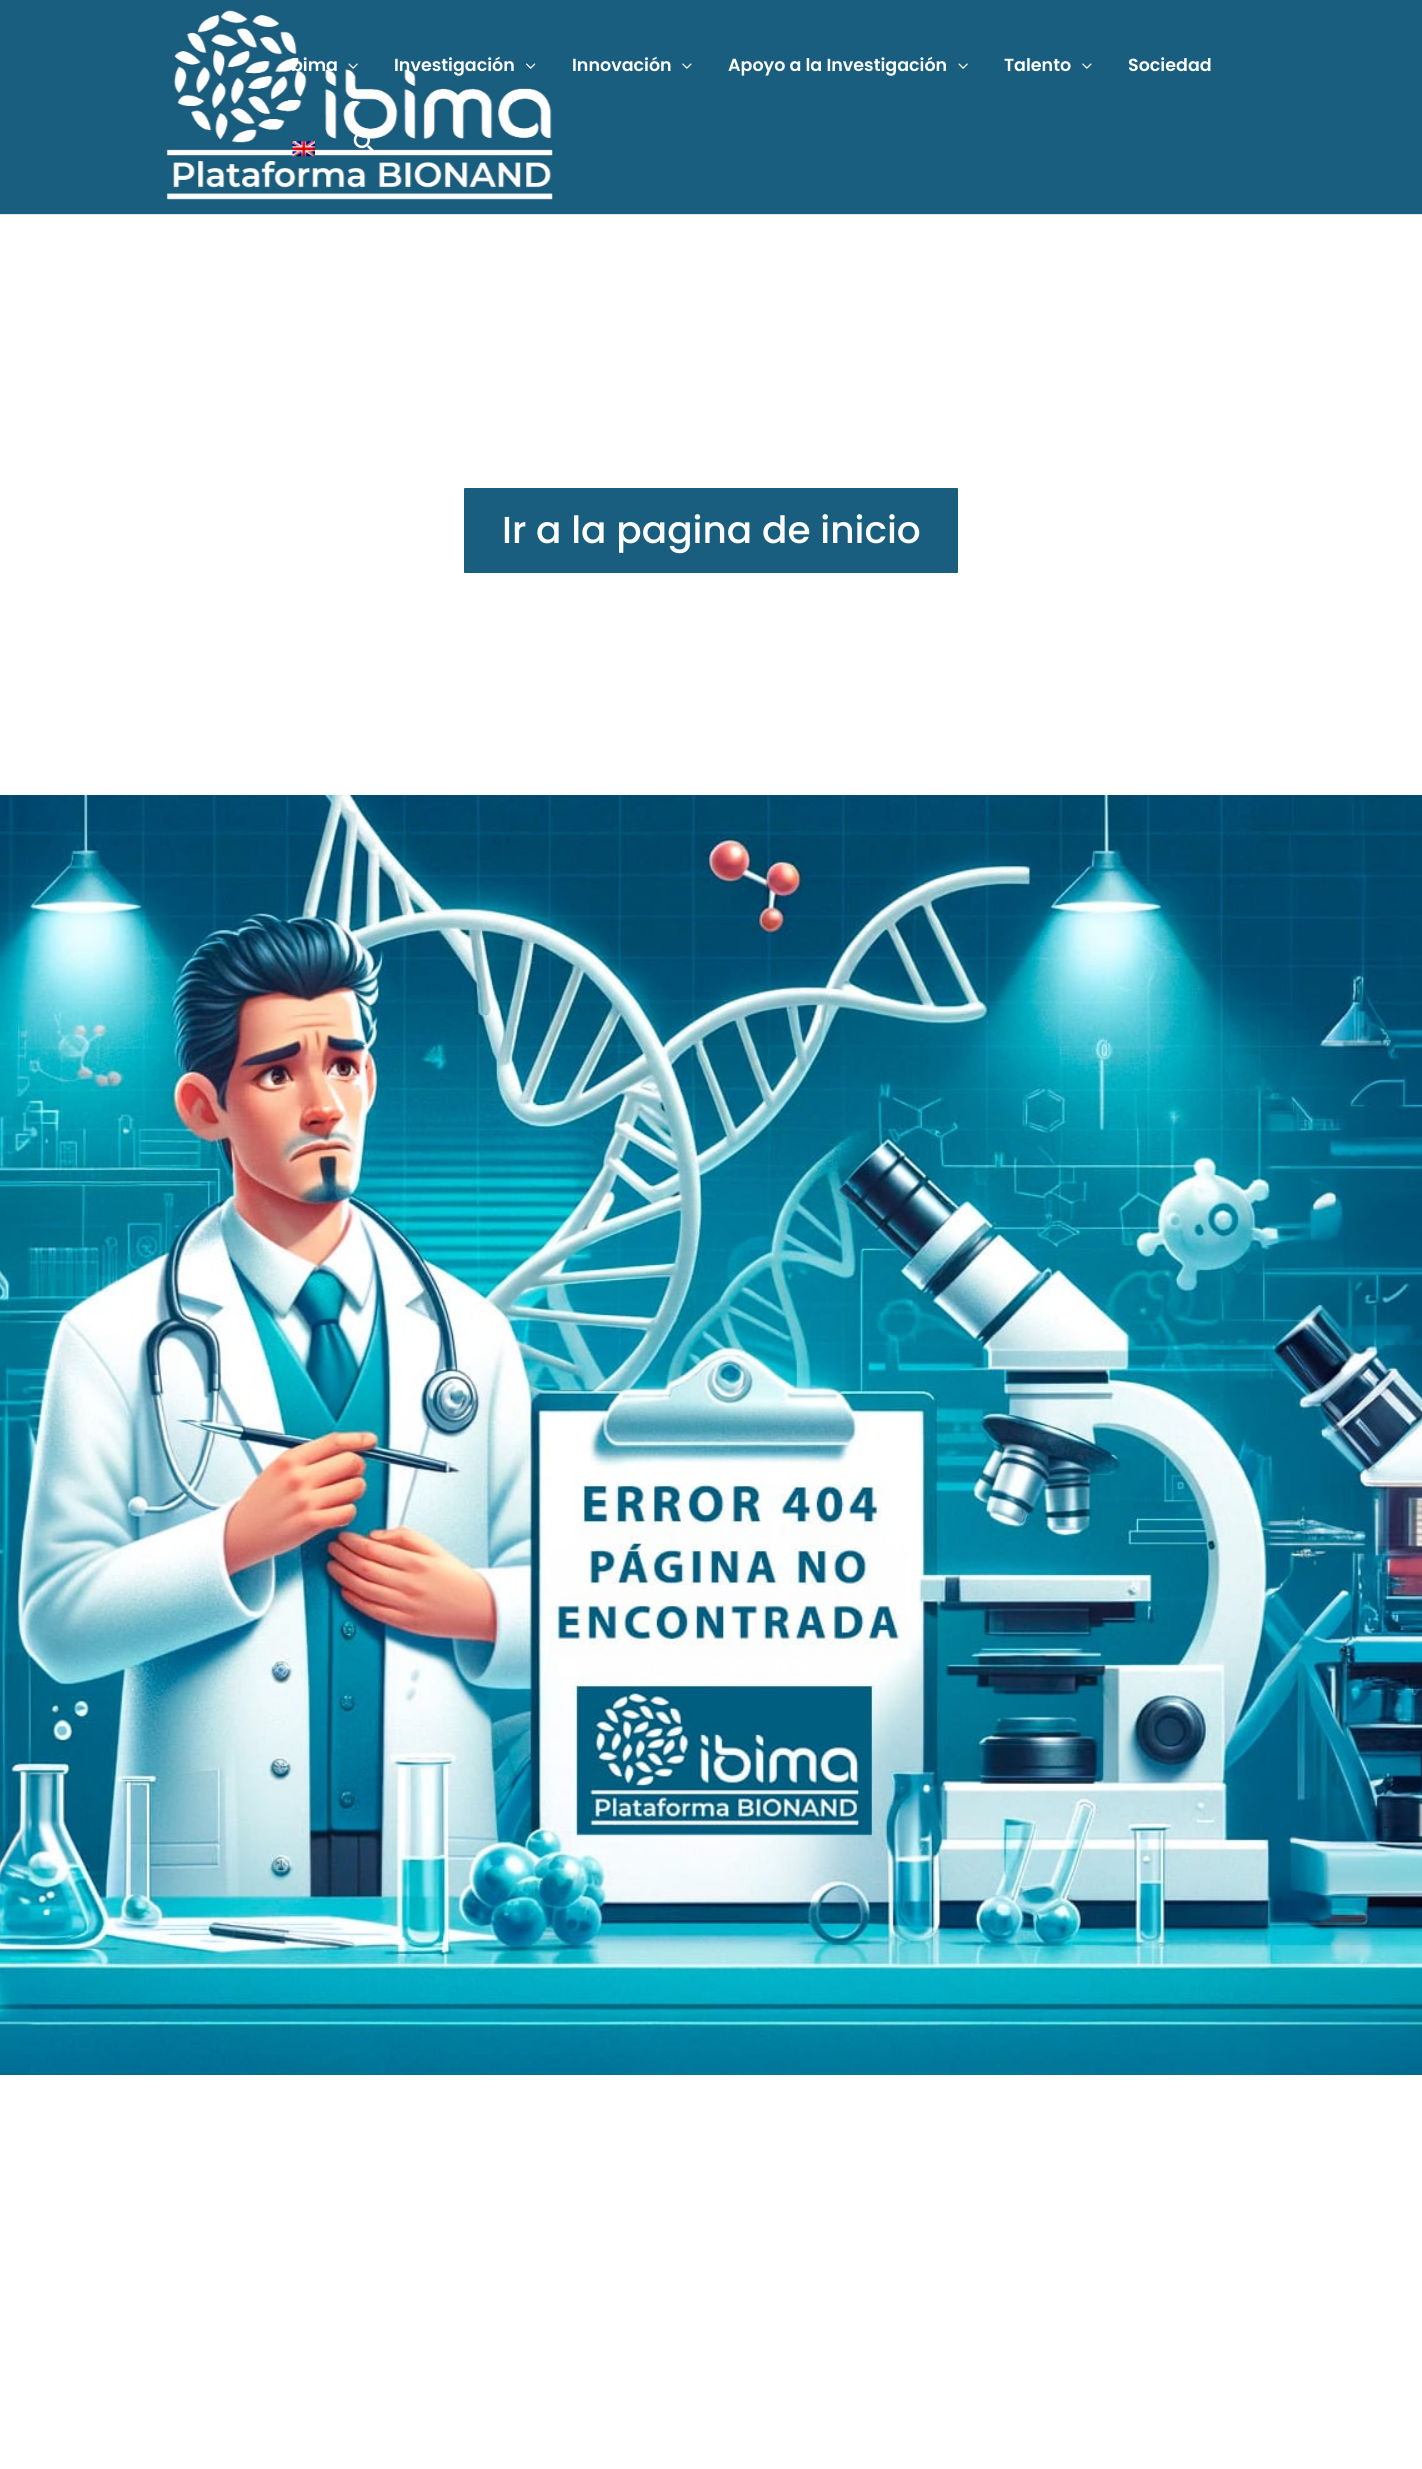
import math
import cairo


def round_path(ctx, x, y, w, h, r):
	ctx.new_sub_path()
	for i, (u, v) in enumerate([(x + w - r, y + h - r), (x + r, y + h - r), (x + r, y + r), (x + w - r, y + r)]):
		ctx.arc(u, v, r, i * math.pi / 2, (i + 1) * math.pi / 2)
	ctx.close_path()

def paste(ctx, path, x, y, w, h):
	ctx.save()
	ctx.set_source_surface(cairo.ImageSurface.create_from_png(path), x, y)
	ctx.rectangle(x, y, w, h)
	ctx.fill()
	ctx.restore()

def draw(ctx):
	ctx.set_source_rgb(1, 1, 1)
	ctx.paint()
	ctx.set_source_rgb(0.902, 0.902, 0.902)
	ctx.new_path()
	ctx.move_to(0, 214)
	ctx.line_to(0, 215)
	ctx.line_to(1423, 215)
	ctx.line_to(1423, 1)
	ctx.line_to(1422, 1)
	ctx.line_to(1422, 214)
	ctx.close_path()
	ctx.fill()
	ctx.set_source_rgb(0.098, 0.369, 0.498)
	ctx.rectangle(0, 0, 1422, 214)
	ctx.fill()
	paste(ctx, 'media/1.png', 166, 10, 387, 190)
	ctx.select_font_face('Poppins SemiBold')
	ctx.set_font_size(17.5)
	ctx.set_source_rgb(1, 1, 1)
	ctx.move_to(291, 71)
	ctx.show_text('bima')
	paste(ctx, 'media/2.png', 348, 63, 10, 6)
	ctx.move_to(394, 71)
	ctx.show_text('Investigación')
	paste(ctx, 'media/3.png', 526, 63, 10, 6)
	ctx.move_to(572, 71)
	ctx.show_text('Innovación')
	paste(ctx, 'media/4.png', 682, 63, 10, 6)
	ctx.move_to(728, 71)
	ctx.show_text('Apoyo a la Investigación')
	paste(ctx, 'media/5.png', 958, 63, 10, 6)
	ctx.move_to(1004, 71)
	ctx.show_text('Talento')
	paste(ctx, 'media/4.png', 1082, 63, 10, 6)
	ctx.move_to(1128, 71)
	ctx.show_text('Sociedad')
	paste(ctx, 'media/6.png', 292, 141, 23, 16)
	paste(ctx, 'media/7.png', 353, 134, 22, 17)
	paste(ctx, 'media/8.png', 0, 795, 1422, 1280)
	ctx.set_source_rgb(0.098, 0.369, 0.498)
	round_path(ctx, 462.5, 486.5, 497, 88, 2.5)
	ctx.fill_preserve()
	ctx.set_source_rgb(1, 1, 1)
	ctx.set_line_width(3)
	ctx.stroke()
	ctx.select_font_face('Poppins Medium')
	ctx.set_font_size(37.5)
	ctx.move_to(502, 543)
	ctx.show_text('Ir a la pagina de inicio')


surface = cairo.ImageSurface(cairo.FORMAT_RGB24, 1422, 2469)
ctx = cairo.Context(surface)
options = cairo.FontOptions()
options.set_hint_metrics(cairo.HINT_METRICS_OFF)
options.set_hint_style(cairo.HINT_STYLE_NONE)
ctx.set_font_options(options)
ctx.set_miter_limit(4)
draw(ctx)
surface.write_to_png('image.png')
